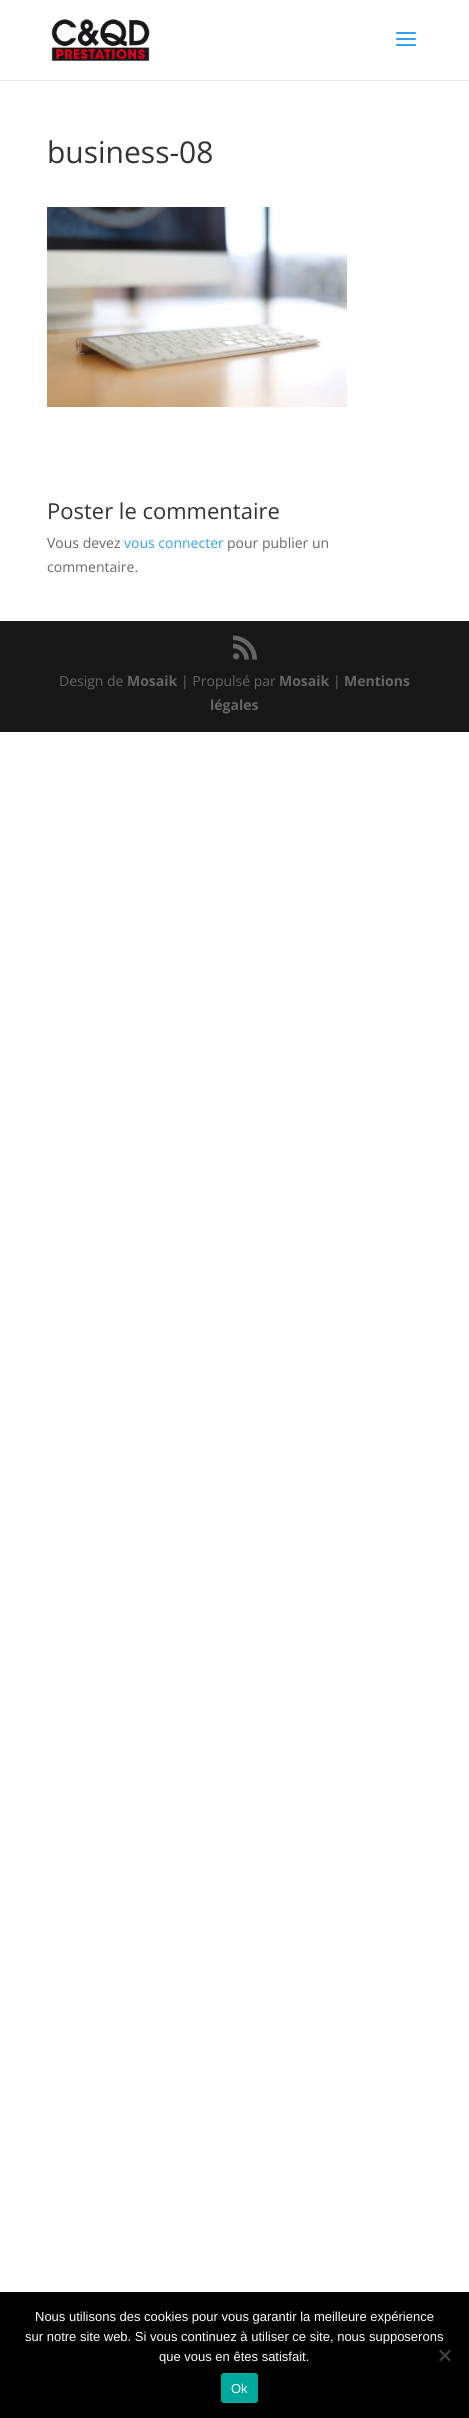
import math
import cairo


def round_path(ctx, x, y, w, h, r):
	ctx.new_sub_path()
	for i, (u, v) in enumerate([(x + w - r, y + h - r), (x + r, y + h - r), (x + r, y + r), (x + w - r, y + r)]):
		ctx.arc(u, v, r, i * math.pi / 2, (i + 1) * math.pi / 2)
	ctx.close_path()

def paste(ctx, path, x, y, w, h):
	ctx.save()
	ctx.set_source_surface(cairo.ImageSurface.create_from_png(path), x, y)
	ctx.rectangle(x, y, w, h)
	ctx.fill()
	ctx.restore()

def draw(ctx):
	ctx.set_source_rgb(1, 1, 1)
	ctx.paint()
	ctx.set_source_rgb(0.902, 0.902, 0.902)
	ctx.rectangle(0, 80, 469, 1)
	ctx.fill()
	paste(ctx, 'media/1.png', 51, 19, 99, 42)
	paste(ctx, 'media/2.png', 396, 32, 20, 14)
	ctx.select_font_face('Open Sans')
	ctx.set_font_size(30)
	ctx.set_source_rgb(0.2, 0.2, 0.2)
	ctx.move_to(47, 163)
	ctx.show_text('business-08')
	paste(ctx, 'media/3.png', 47, 207, 300, 200)
	ctx.set_font_size(22)
	ctx.move_to(47, 519)
	ctx.show_text('Poster le commentaire')
	ctx.set_font_size(14)
	ctx.set_source_rgb(0.4, 0.4, 0.4)
	ctx.move_to(47, 548)
	ctx.show_text('Vous devez')
	ctx.set_source_rgb(0.18, 0.639, 0.949)
	ctx.move_to(124, 548)
	ctx.show_text('vous connecter')
	ctx.set_source_rgb(0.4, 0.4, 0.4)
	ctx.move_to(227, 548)
	ctx.show_text('pour publier un')
	ctx.move_to(47, 572)
	ctx.show_text('commentaire.')
	ctx.set_source_rgb(0.09, 0.09, 0.09)
	ctx.rectangle(0, 621, 469, 111)
	ctx.fill()
	paste(ctx, 'media/4.png', 233, 635, 24, 25)
	ctx.set_source_rgb(0.4, 0.4, 0.4)
	ctx.move_to(59, 686)
	ctx.show_text('Design de')
	ctx.select_font_face('Open Sans', cairo.FONT_SLANT_NORMAL, cairo.FONT_WEIGHT_BOLD)
	ctx.move_to(127, 686)
	ctx.show_text('Mosaik')
	ctx.select_font_face('Open Sans')
	ctx.move_to(181, 686)
	ctx.show_text('| Propulsé par')
	ctx.select_font_face('Open Sans', cairo.FONT_SLANT_NORMAL, cairo.FONT_WEIGHT_BOLD)
	ctx.move_to(279, 686)
	ctx.show_text('Mosaik')
	ctx.select_font_face('Open Sans')
	ctx.move_to(333, 686)
	ctx.show_text('|')
	ctx.select_font_face('Open Sans', cairo.FONT_SLANT_NORMAL, cairo.FONT_WEIGHT_BOLD)
	ctx.move_to(344, 686)
	ctx.show_text('Mentions')
	ctx.move_to(210, 710)
	ctx.show_text('légales')
	ctx.set_source_rgb(0, 0, 0)
	ctx.rectangle(0, 2292, 469, 126)
	ctx.fill()
	ctx.select_font_face('Liberation Sans')
	ctx.set_font_size(13)
	ctx.set_source_rgb(1, 1, 1)
	for x, y, s in [
		(35, 2321, 'Nous utilisons des cookies pour vous garantir la meilleure expérience'),
		(25, 2341, 'sur notre site web. Si vous continuez à utiliser ce site, nous supposerons'),
		(159, 2361, 'que vous en êtes satisfait.'),
	]:
		ctx.move_to(x, y)
		ctx.show_text(s)
	ctx.set_source_rgb(0.251, 0.251, 0.251)
	ctx.new_path()
	ctx.move_to(449.5, 2349.5)
	ctx.line_to(451, 2351)
	ctx.line_to(440.5, 2361.5)
	ctx.line_to(439, 2360)
	ctx.close_path()
	ctx.fill()
	ctx.new_path()
	ctx.move_to(439, 2351)
	ctx.line_to(440.5, 2349.5)
	ctx.line_to(451, 2360)
	ctx.line_to(449.5, 2361.5)
	ctx.close_path()
	ctx.fill()
	ctx.set_source_rgb(0, 0.663, 0.616)
	round_path(ctx, 221, 2373, 37, 30, 3)
	ctx.fill()
	ctx.set_source_rgb(1, 1, 1)
	ctx.move_to(231, 2393)
	ctx.show_text('Ok')


surface = cairo.ImageSurface(cairo.FORMAT_RGB24, 469, 2418)
ctx = cairo.Context(surface)
options = cairo.FontOptions()
options.set_hint_metrics(cairo.HINT_METRICS_OFF)
options.set_hint_style(cairo.HINT_STYLE_NONE)
ctx.set_font_options(options)
ctx.set_miter_limit(4)
draw(ctx)
surface.write_to_png('image.png')
